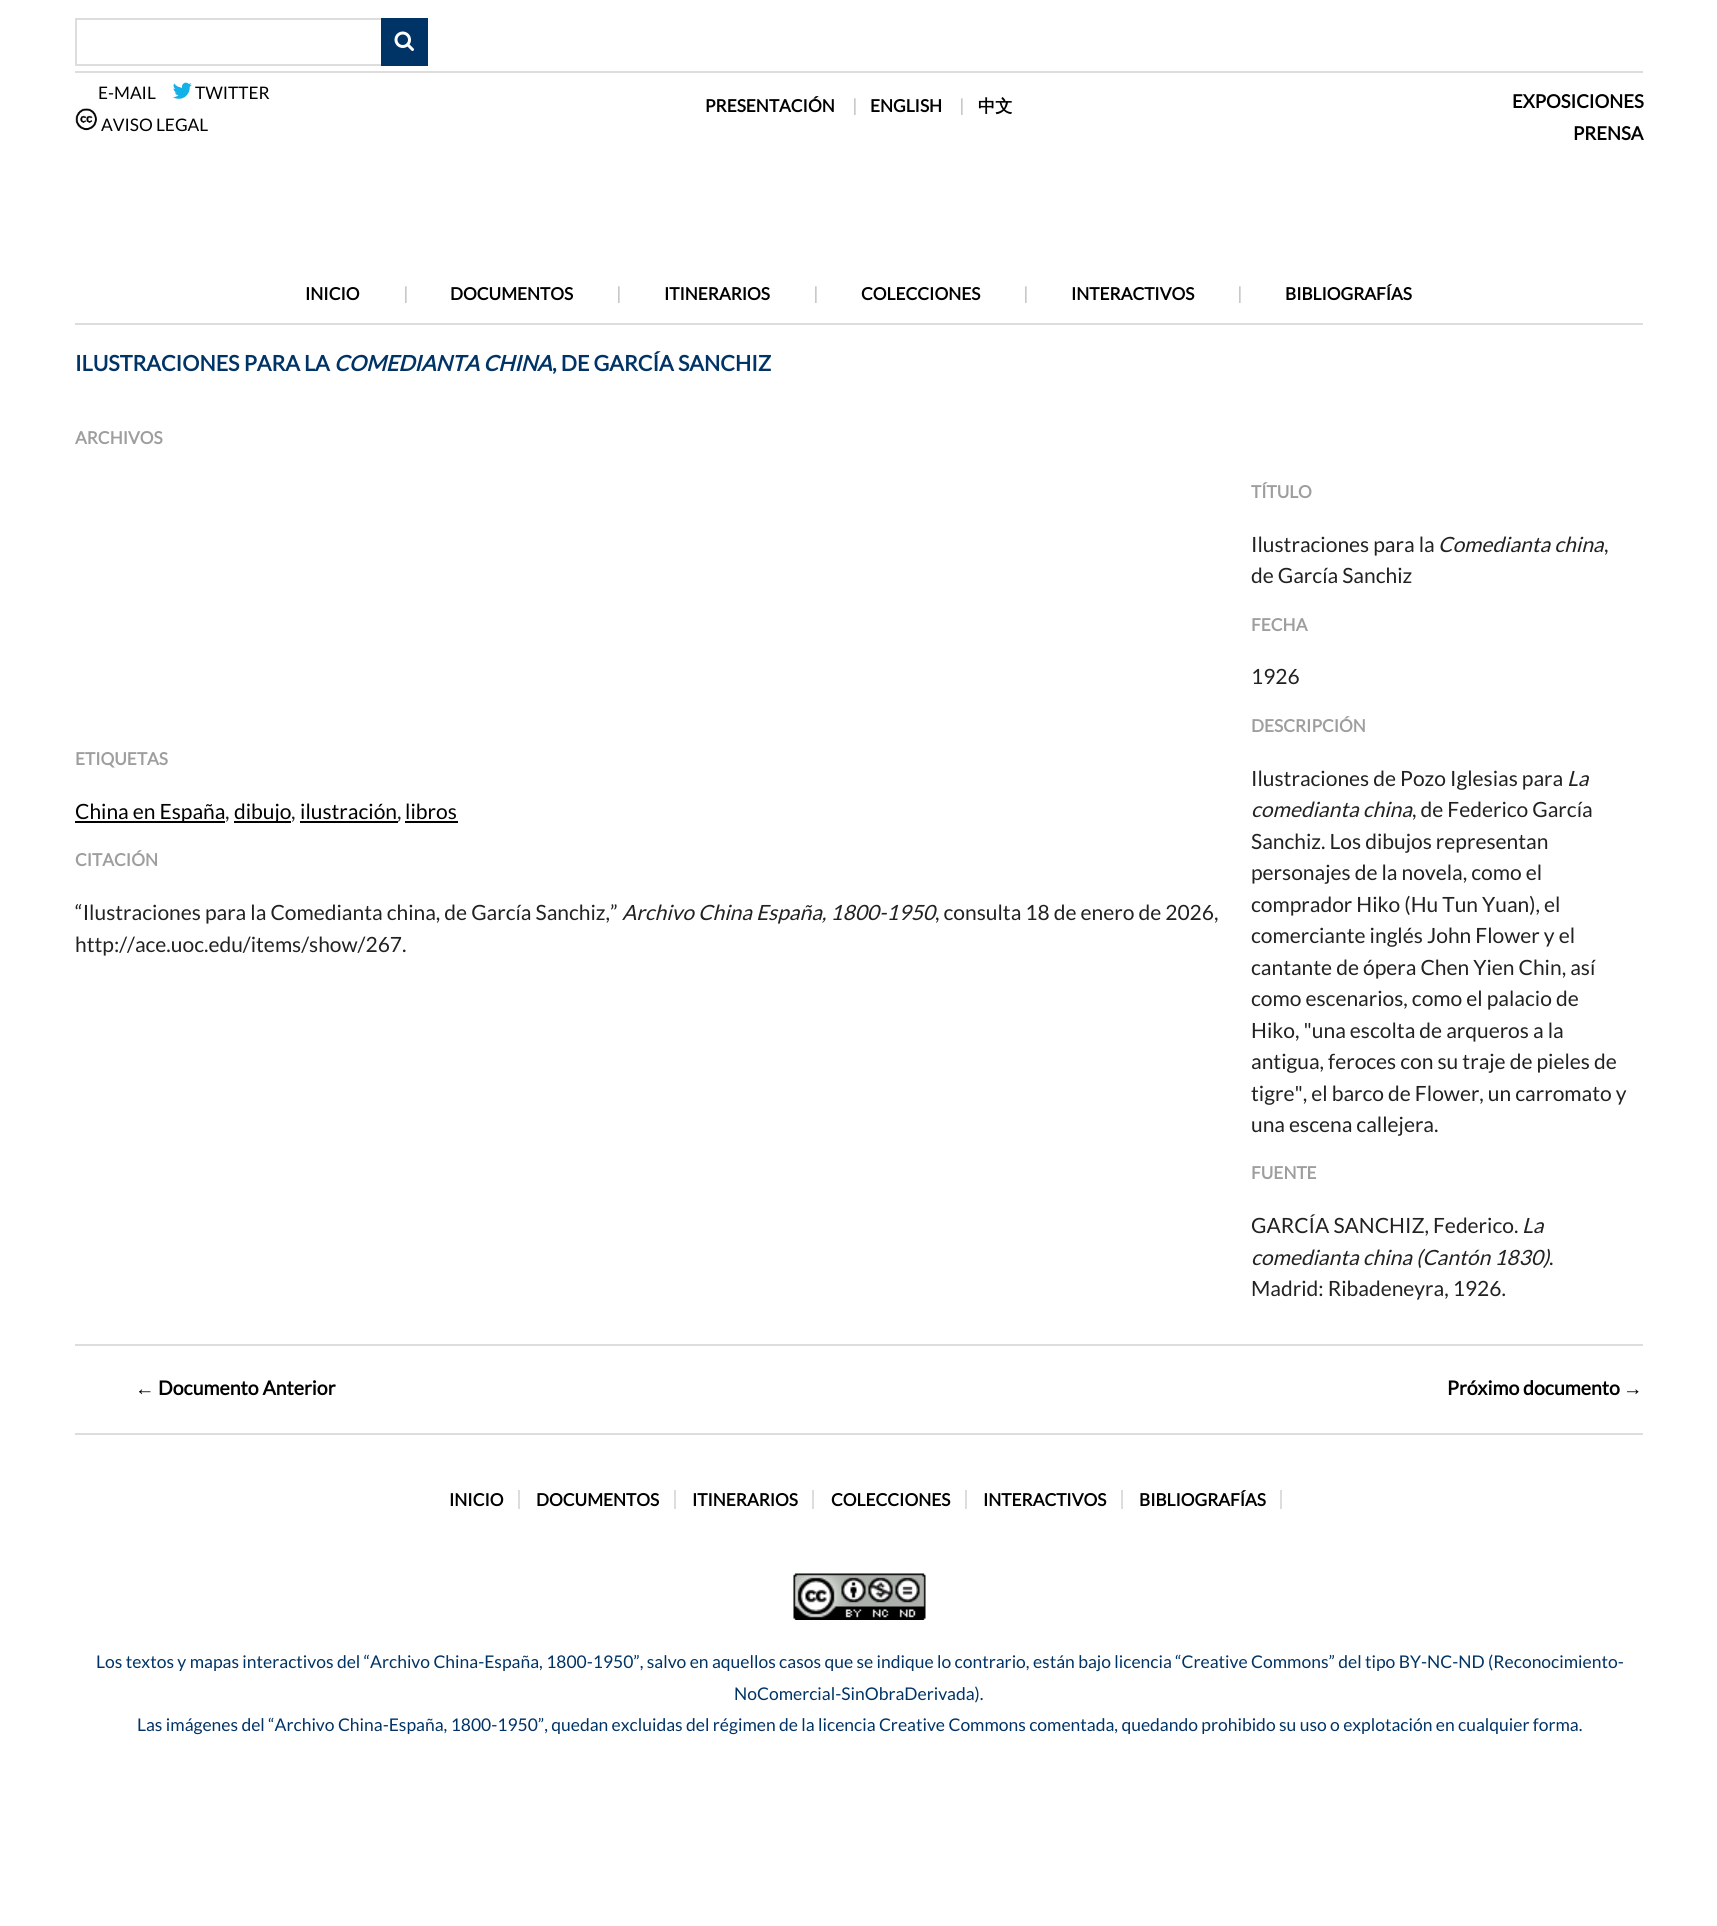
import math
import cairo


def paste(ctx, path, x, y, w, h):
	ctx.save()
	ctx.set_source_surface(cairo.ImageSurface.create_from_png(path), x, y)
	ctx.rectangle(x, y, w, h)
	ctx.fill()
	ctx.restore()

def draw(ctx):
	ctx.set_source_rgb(1, 1, 1)
	ctx.paint()
	ctx.rectangle(76, 19, 351, 46)
	ctx.set_source_rgb(0.867, 0.867, 0.867)
	ctx.stroke()
	ctx.set_source_rgb(0, 0.2, 0.4)
	ctx.rectangle(381, 18, 47, 48)
	ctx.fill()
	paste(ctx, 'media/1.png', 394, 31, 20, 20)
	ctx.set_source_rgb(0.867, 0.867, 0.867)
	ctx.rectangle(75, 71, 1568, 2)
	ctx.fill()
	ctx.select_font_face('Lato')
	ctx.set_font_size(17.25)
	ctx.set_source_rgb(0, 0, 0)
	ctx.move_to(98, 99)
	ctx.show_text('E-MAIL')
	paste(ctx, 'media/2.png', 173, 82, 19, 17)
	ctx.move_to(195, 99)
	ctx.show_text('TWITTER')
	paste(ctx, 'media/3.png', 75, 108, 22, 23)
	ctx.move_to(101, 131)
	ctx.show_text('AVISO LEGAL')
	ctx.select_font_face('Lato', cairo.FONT_SLANT_NORMAL, cairo.FONT_WEIGHT_BOLD)
	ctx.move_to(705, 112)
	ctx.show_text('PRESENTACIÓN')
	ctx.set_source_rgb(0.788, 0.788, 0.788)
	ctx.move_to(852, 112)
	ctx.show_text('|')
	ctx.set_source_rgb(0, 0, 0)
	ctx.move_to(870, 112)
	ctx.show_text('ENGLISH')
	ctx.set_source_rgb(0.788, 0.788, 0.788)
	ctx.move_to(959, 112)
	ctx.show_text('|')
	ctx.select_font_face('WenQuanYi Zen Hei', cairo.FONT_SLANT_NORMAL, cairo.FONT_WEIGHT_BOLD)
	ctx.set_source_rgb(0, 0, 0)
	ctx.move_to(978, 112)
	ctx.show_text('中文')
	ctx.select_font_face('Lato', cairo.FONT_SLANT_NORMAL, cairo.FONT_WEIGHT_BOLD)
	ctx.set_font_size(18.5)
	ctx.move_to(1512, 108)
	ctx.show_text('EXPOSICIONES')
	ctx.move_to(1573, 140)
	ctx.show_text('PRENSA')
	ctx.set_font_size(17.25)
	ctx.move_to(305, 300)
	ctx.show_text('INICIO')
	ctx.set_source_rgb(0.788, 0.788, 0.788)
	ctx.move_to(403, 300)
	ctx.show_text('|')
	ctx.set_source_rgb(0, 0, 0)
	ctx.move_to(450, 300)
	ctx.show_text('DOCUMENTOS')
	ctx.set_source_rgb(0.788, 0.788, 0.788)
	ctx.move_to(616, 300)
	ctx.show_text('|')
	ctx.set_source_rgb(0, 0, 0)
	ctx.move_to(664, 300)
	ctx.show_text('ITINERARIOS')
	ctx.set_source_rgb(0.788, 0.788, 0.788)
	ctx.move_to(813, 300)
	ctx.show_text('|')
	ctx.set_source_rgb(0, 0, 0)
	ctx.move_to(861, 300)
	ctx.show_text('COLECCIONES')
	ctx.set_source_rgb(0.788, 0.788, 0.788)
	ctx.move_to(1023, 300)
	ctx.show_text('|')
	ctx.set_source_rgb(0, 0, 0)
	ctx.move_to(1071, 300)
	ctx.show_text('INTERACTIVOS')
	ctx.set_source_rgb(0.788, 0.788, 0.788)
	ctx.move_to(1237, 300)
	ctx.show_text('|')
	ctx.set_source_rgb(0, 0, 0)
	ctx.move_to(1285, 300)
	ctx.show_text('BIBLIOGRAFÍAS')
	ctx.set_source_rgb(0.867, 0.867, 0.867)
	ctx.rectangle(75, 323, 1568, 2)
	ctx.fill()
	ctx.rectangle(75, 1433, 1568, 2)
	ctx.fill()
	ctx.set_font_size(21.5)
	ctx.set_source_rgb(0, 0.2, 0.4)
	ctx.move_to(75, 371)
	ctx.show_text('ILUSTRACIONES PARA LA')
	ctx.select_font_face('Lato', cairo.FONT_SLANT_ITALIC, cairo.FONT_WEIGHT_BOLD)
	ctx.move_to(334, 371)
	ctx.show_text('COMEDIANTA CHINA')
	ctx.select_font_face('Lato', cairo.FONT_SLANT_NORMAL, cairo.FONT_WEIGHT_BOLD)
	ctx.move_to(552, 371)
	ctx.show_text(', DE GARCÍA SANCHIZ')
	ctx.set_font_size(17.25)
	ctx.set_source_rgb(0.62, 0.62, 0.62)
	ctx.move_to(75, 444)
	ctx.show_text('ARCHIVOS')
	ctx.move_to(75, 765)
	ctx.show_text('ETIQUETAS')
	ctx.set_source_rgb(0, 0, 0)
	ctx.rectangle(75, 821, 150, 2)
	ctx.fill()
	ctx.select_font_face('Lato')
	ctx.set_font_size(21)
	ctx.move_to(75, 819)
	ctx.show_text('China en España')
	ctx.set_source_rgb(0.133, 0.133, 0.133)
	ctx.move_to(225, 819)
	ctx.show_text(',')
	ctx.set_source_rgb(0, 0, 0)
	ctx.rectangle(234, 821, 57, 2)
	ctx.fill()
	ctx.move_to(234, 819)
	ctx.show_text('dibujo')
	ctx.set_source_rgb(0.133, 0.133, 0.133)
	ctx.move_to(291, 819)
	ctx.show_text(',')
	ctx.set_source_rgb(0, 0, 0)
	ctx.move_to(300, 819)
	ctx.show_text('ilustración')
	ctx.rectangle(300, 821, 98, 2)
	ctx.fill()
	ctx.set_source_rgb(0.133, 0.133, 0.133)
	ctx.move_to(397, 819)
	ctx.show_text(',')
	ctx.set_source_rgb(0, 0, 0)
	ctx.move_to(405, 819)
	ctx.show_text('libros')
	ctx.rectangle(405, 821, 53, 2)
	ctx.fill()
	ctx.select_font_face('Lato', cairo.FONT_SLANT_NORMAL, cairo.FONT_WEIGHT_BOLD)
	ctx.set_font_size(17.25)
	ctx.set_source_rgb(0.62, 0.62, 0.62)
	ctx.move_to(75, 866)
	ctx.show_text('CITACIÓN')
	ctx.select_font_face('Lato')
	ctx.set_font_size(21)
	ctx.set_source_rgb(0.133, 0.133, 0.133)
	ctx.move_to(75, 920)
	ctx.show_text('“Ilustraciones para la Comedianta china, de García Sanchiz,”')
	ctx.select_font_face('Lato', cairo.FONT_SLANT_ITALIC)
	ctx.move_to(622, 920)
	ctx.show_text('Archivo China España, 1800-1950')
	ctx.select_font_face('Lato')
	ctx.move_to(935, 920)
	ctx.show_text(', consulta 18 de enero de 2026,')
	ctx.move_to(75, 952)
	ctx.show_text('http://ace.uoc.edu/items/show/267.')
	ctx.select_font_face('Lato', cairo.FONT_SLANT_NORMAL, cairo.FONT_WEIGHT_BOLD)
	ctx.set_font_size(17.25)
	ctx.set_source_rgb(0.62, 0.62, 0.62)
	ctx.move_to(1251, 498)
	ctx.show_text('TÍTULO')
	ctx.select_font_face('Lato')
	ctx.set_font_size(21)
	ctx.set_source_rgb(0.133, 0.133, 0.133)
	ctx.move_to(1251, 552)
	ctx.show_text('Ilustraciones para la')
	ctx.select_font_face('Lato', cairo.FONT_SLANT_ITALIC)
	ctx.move_to(1438, 552)
	ctx.show_text('Comedianta china')
	ctx.select_font_face('Lato')
	ctx.move_to(1604, 552)
	ctx.show_text(',')
	ctx.move_to(1251, 583)
	ctx.show_text('de García Sanchiz')
	ctx.select_font_face('Lato', cairo.FONT_SLANT_NORMAL, cairo.FONT_WEIGHT_BOLD)
	ctx.set_font_size(17.25)
	ctx.set_source_rgb(0.62, 0.62, 0.62)
	ctx.move_to(1251, 631)
	ctx.show_text('FECHA')
	ctx.select_font_face('Lato')
	ctx.set_font_size(21)
	ctx.set_source_rgb(0.133, 0.133, 0.133)
	ctx.move_to(1251, 684)
	ctx.show_text('1926')
	ctx.select_font_face('Lato', cairo.FONT_SLANT_NORMAL, cairo.FONT_WEIGHT_BOLD)
	ctx.set_font_size(17.25)
	ctx.set_source_rgb(0.62, 0.62, 0.62)
	ctx.move_to(1251, 732)
	ctx.show_text('DESCRIPCIÓN')
	ctx.select_font_face('Lato')
	ctx.set_font_size(21)
	ctx.set_source_rgb(0.133, 0.133, 0.133)
	ctx.move_to(1251, 786)
	ctx.show_text('Ilustraciones de Pozo Iglesias para')
	ctx.select_font_face('Lato', cairo.FONT_SLANT_ITALIC)
	ctx.move_to(1567, 786)
	ctx.show_text('La')
	ctx.move_to(1251, 817)
	ctx.show_text('comedianta china')
	ctx.select_font_face('Lato')
	for x, y, s in [
		(1412, 817, ', de Federico García'),
		(1251, 849, 'Sanchiz. Los dibujos representan'),
		(1251, 880, 'personajes de la novela, como el'),
		(1251, 912, 'comprador Hiko (Hu Tun Yuan), el'),
		(1251, 943, 'comerciante inglés John Flower y el'),
		(1251, 975, 'cantante de ópera Chen Yien Chin, así'),
		(1251, 1006, 'como escenarios, como el palacio de'),
		(1251, 1038, 'Hiko, "una escolta de arqueros a la'),
		(1251, 1069, 'antigua, feroces con su traje de pieles de'),
		(1251, 1101, 'tigre", el barco de Flower, un carromato y'),
		(1251, 1132, 'una escena callejera.'),
	]:
		ctx.move_to(x, y)
		ctx.show_text(s)
	ctx.select_font_face('Lato', cairo.FONT_SLANT_NORMAL, cairo.FONT_WEIGHT_BOLD)
	ctx.set_font_size(17.25)
	ctx.set_source_rgb(0.62, 0.62, 0.62)
	ctx.move_to(1251, 1179)
	ctx.show_text('FUENTE')
	ctx.select_font_face('Lato')
	ctx.set_font_size(21)
	ctx.set_source_rgb(0.133, 0.133, 0.133)
	ctx.move_to(1251, 1233)
	ctx.show_text('GARCÍA SANCHIZ, Federico.')
	ctx.select_font_face('Lato', cairo.FONT_SLANT_ITALIC)
	ctx.move_to(1522, 1233)
	ctx.show_text('La')
	ctx.move_to(1251, 1265)
	ctx.show_text('comedianta china (Cantón 1830)')
	ctx.select_font_face('Lato')
	ctx.move_to(1549, 1265)
	ctx.show_text('.')
	ctx.move_to(1251, 1296)
	ctx.show_text('Madrid: Ribadeneyra, 1926.')
	ctx.set_source_rgb(0.867, 0.867, 0.867)
	ctx.rectangle(75, 1344, 1568, 2)
	ctx.fill()
	ctx.select_font_face('Liberation Sans', cairo.FONT_SLANT_NORMAL, cairo.FONT_WEIGHT_BOLD)
	ctx.set_font_size(19.5)
	ctx.set_source_rgb(0, 0, 0)
	ctx.move_to(135, 1395)
	ctx.show_text('←')
	ctx.select_font_face('Lato', cairo.FONT_SLANT_NORMAL, cairo.FONT_WEIGHT_BOLD)
	ctx.move_to(158, 1395)
	ctx.show_text('Documento Anterior')
	ctx.move_to(1447, 1395)
	ctx.show_text('Próximo documento')
	ctx.select_font_face('Liberation Sans', cairo.FONT_SLANT_NORMAL, cairo.FONT_WEIGHT_BOLD)
	ctx.move_to(1623, 1395)
	ctx.show_text('→')
	ctx.select_font_face('Lato', cairo.FONT_SLANT_NORMAL, cairo.FONT_WEIGHT_BOLD)
	ctx.set_font_size(17.25)
	ctx.move_to(449, 1506)
	ctx.show_text('INICIO')
	ctx.set_source_rgb(0.867, 0.867, 0.867)
	ctx.rectangle(518, 1490, 2, 19)
	ctx.fill()
	ctx.set_source_rgb(0, 0, 0)
	ctx.move_to(536, 1506)
	ctx.show_text('DOCUMENTOS')
	ctx.set_source_rgb(0.867, 0.867, 0.867)
	ctx.rectangle(674, 1490, 2, 19)
	ctx.fill()
	ctx.set_source_rgb(0, 0, 0)
	ctx.move_to(692, 1506)
	ctx.show_text('ITINERARIOS')
	ctx.set_source_rgb(0.867, 0.867, 0.867)
	ctx.rectangle(812, 1490, 2, 19)
	ctx.fill()
	ctx.set_source_rgb(0, 0, 0)
	ctx.move_to(831, 1506)
	ctx.show_text('COLECCIONES')
	ctx.set_source_rgb(0.867, 0.867, 0.867)
	ctx.rectangle(965, 1490, 2, 19)
	ctx.fill()
	ctx.set_source_rgb(0, 0, 0)
	ctx.move_to(983, 1506)
	ctx.show_text('INTERACTIVOS')
	ctx.set_source_rgb(0.867, 0.867, 0.867)
	ctx.rectangle(1121, 1490, 2, 19)
	ctx.fill()
	ctx.set_source_rgb(0, 0, 0)
	ctx.move_to(1139, 1506)
	ctx.show_text('BIBLIOGRAFÍAS')
	ctx.set_source_rgb(0.867, 0.867, 0.867)
	ctx.rectangle(1280, 1490, 2, 19)
	ctx.fill()
	paste(ctx, 'media/4.png', 793, 1573, 133, 47)
	ctx.select_font_face('Lato')
	ctx.set_font_size(17.48)
	ctx.set_source_rgb(0, 0.2, 0.4)
	for x, y, s in [
		(96, 1668, 'Los textos y mapas interactivos del “Archivo China-España, 1800-1950”, salvo en aquellos casos que se indique lo contrario, están bajo licencia “Creative Commons” del tipo BY-NC-ND (Reconocimiento-'),
		(734, 1700, 'NoComercial-SinObraDerivada).'),
		(137, 1731, 'Las imágenes del “Archivo China-España, 1800-1950”, quedan excluidas del régimen de la licencia Creative Commons comentada, quedando prohibido su uso o explotación en cualquier forma.'),
	]:
		ctx.move_to(x, y)
		ctx.show_text(s)


surface = cairo.ImageSurface(cairo.FORMAT_RGB24, 1717, 1926)
ctx = cairo.Context(surface)
options = cairo.FontOptions()
options.set_hint_metrics(cairo.HINT_METRICS_OFF)
options.set_hint_style(cairo.HINT_STYLE_NONE)
ctx.set_font_options(options)
ctx.set_miter_limit(4)
draw(ctx)
surface.write_to_png('image.png')
